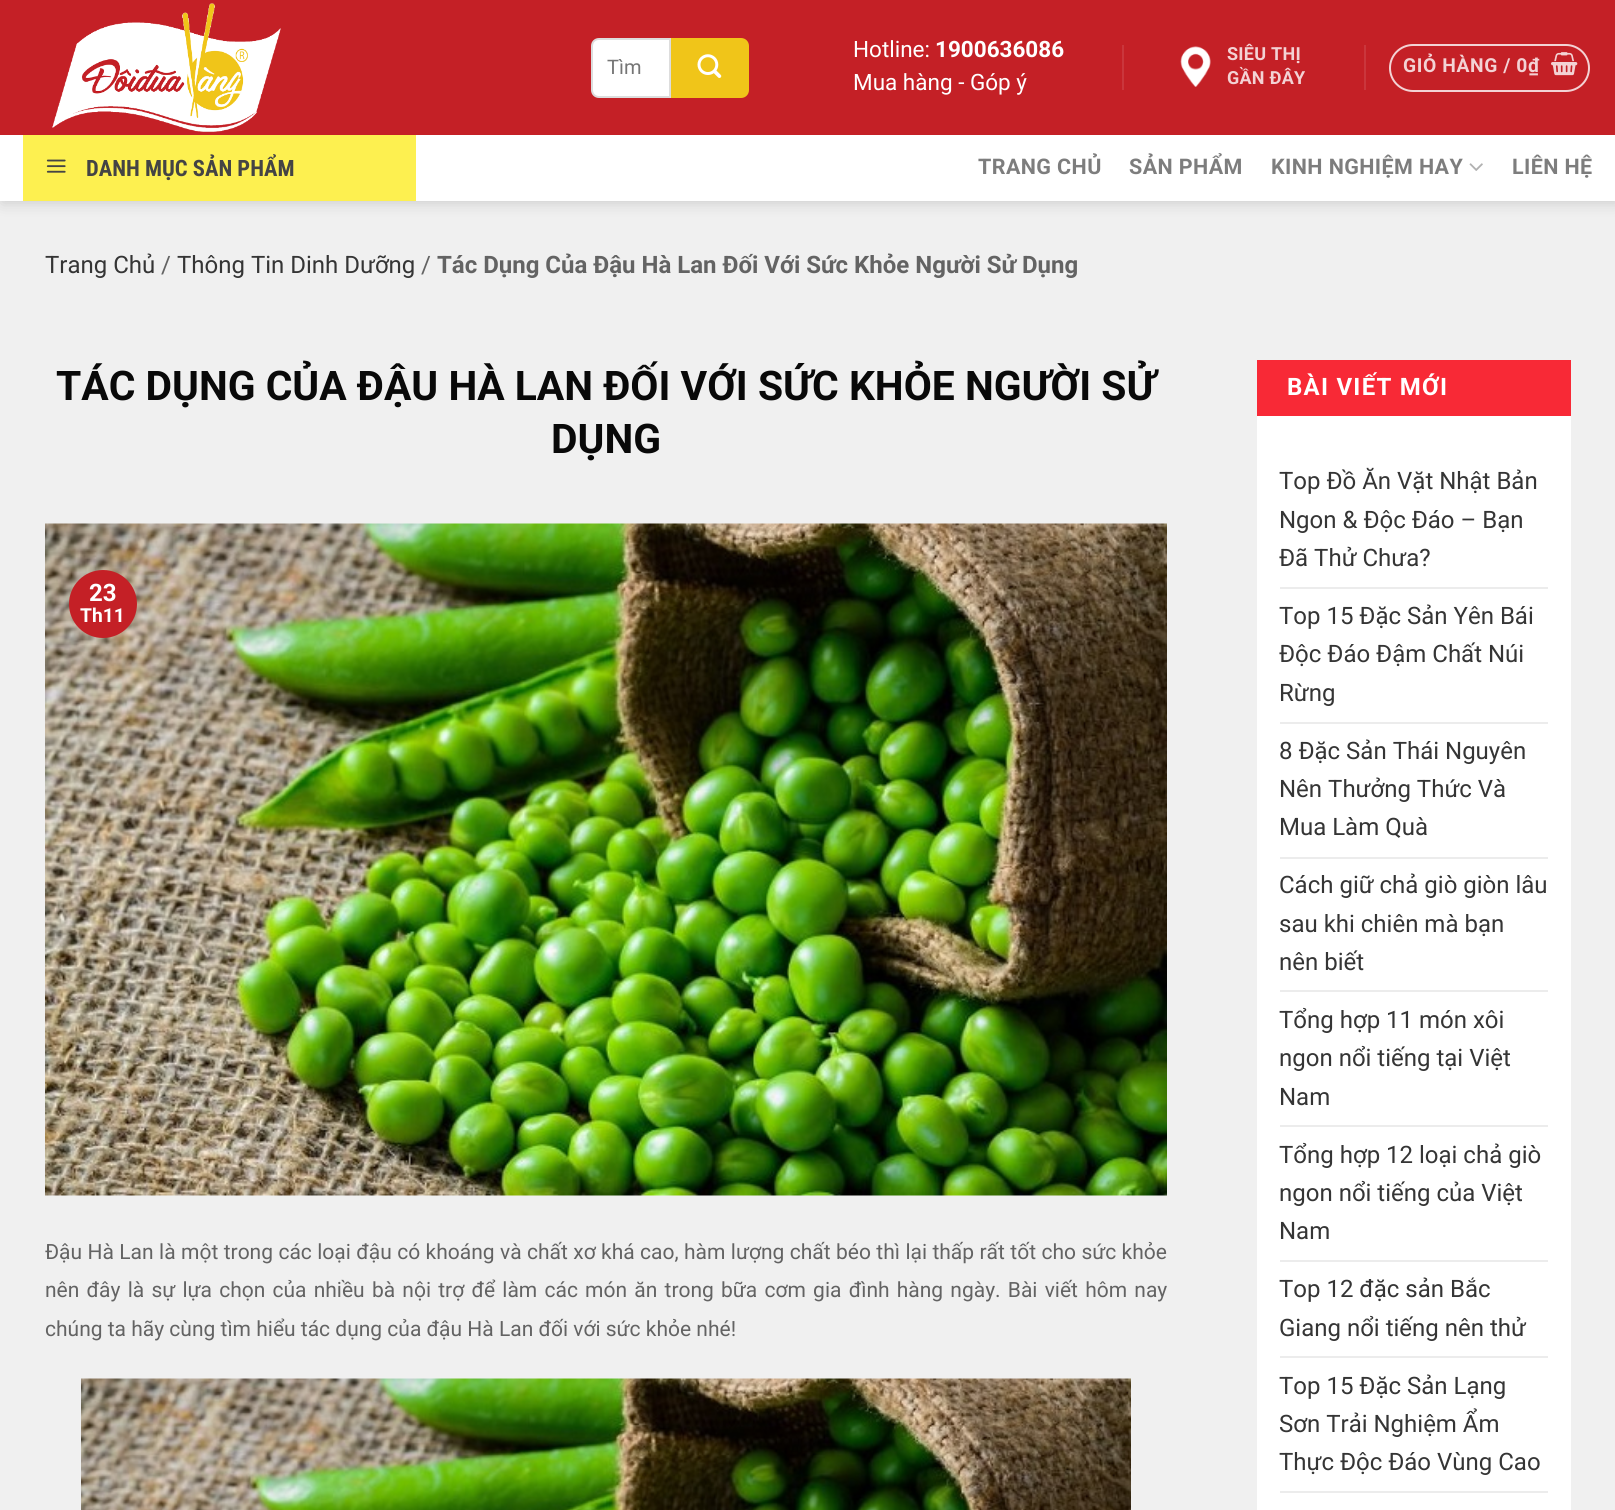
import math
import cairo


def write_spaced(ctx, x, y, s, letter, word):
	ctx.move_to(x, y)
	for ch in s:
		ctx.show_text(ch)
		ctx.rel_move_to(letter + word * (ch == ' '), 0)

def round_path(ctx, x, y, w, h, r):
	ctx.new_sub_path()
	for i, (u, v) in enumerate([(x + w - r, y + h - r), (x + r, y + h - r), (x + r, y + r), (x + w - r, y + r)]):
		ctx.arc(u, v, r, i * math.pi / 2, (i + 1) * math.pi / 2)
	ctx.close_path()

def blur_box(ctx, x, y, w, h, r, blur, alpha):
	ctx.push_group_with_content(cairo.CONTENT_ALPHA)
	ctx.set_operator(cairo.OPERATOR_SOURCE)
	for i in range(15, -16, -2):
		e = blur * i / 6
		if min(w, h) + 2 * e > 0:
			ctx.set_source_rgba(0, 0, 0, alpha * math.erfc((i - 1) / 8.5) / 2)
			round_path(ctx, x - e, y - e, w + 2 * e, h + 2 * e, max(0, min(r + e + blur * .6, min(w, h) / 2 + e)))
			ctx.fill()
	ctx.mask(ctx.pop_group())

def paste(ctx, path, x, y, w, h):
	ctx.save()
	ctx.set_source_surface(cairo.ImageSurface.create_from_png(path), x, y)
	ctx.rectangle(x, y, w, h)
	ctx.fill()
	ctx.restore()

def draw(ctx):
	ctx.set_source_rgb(0.941, 0.941, 0.941)
	ctx.paint()
	ctx.set_source_rgb(0, 0, 0)
	blur_box(ctx, 2, 2, 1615, 201, 0, 7.5, 0.15)
	ctx.set_source_rgb(0.769, 0.125, 0.149)
	ctx.rectangle(0, 0, 1615, 135)
	ctx.fill()
	paste(ctx, 'media/1.png', 52, 3, 229, 129)
	ctx.set_source_rgb(1, 1, 1)
	ctx.new_path()
	ctx.move_to(599, 39)
	ctx.line_to(670, 39)
	ctx.line_to(670, 97)
	ctx.line_to(599, 97)
	ctx.curve_to(595, 97, 592, 94, 592, 90)
	ctx.line_to(592, 46)
	ctx.curve_to(592, 42, 595, 39, 599, 39)
	ctx.close_path()
	ctx.fill_preserve()
	ctx.set_source_rgb(0.867, 0.867, 0.867)
	ctx.stroke()
	ctx.select_font_face('Roboto')
	ctx.set_font_size(20)
	ctx.set_source_rgb(0.459, 0.459, 0.459)
	ctx.move_to(607, 74)
	ctx.show_text('Tìm')
	ctx.set_source_rgb(0.941, 0.773, 0.098)
	ctx.new_path()
	ctx.move_to(671, 38)
	ctx.line_to(741, 38)
	ctx.curve_to(745.5, 38, 749, 41.5, 749, 46)
	ctx.line_to(749, 90)
	ctx.curve_to(749, 94.5, 745.5, 98, 741, 98)
	ctx.line_to(671, 98)
	ctx.close_path()
	ctx.fill()
	paste(ctx, 'media/2.png', 697, 54, 25, 24)
	ctx.set_font_size(22.5)
	ctx.set_source_rgb(1, 1, 1)
	ctx.move_to(853, 57)
	ctx.show_text('Hotline:')
	ctx.select_font_face('Roboto', cairo.FONT_SLANT_NORMAL, cairo.FONT_WEIGHT_BOLD)
	ctx.move_to(935, 57)
	ctx.show_text('1900636086')
	ctx.select_font_face('Roboto')
	ctx.move_to(853, 90)
	ctx.show_text('Mua hàng - Góp ý')
	ctx.set_source_rgb(0.792, 0.212, 0.235)
	ctx.rectangle(1122, 45, 2, 45)
	ctx.fill()
	paste(ctx, 'media/3.png', 1180, 46, 31, 41)
	ctx.select_font_face('Roboto', cairo.FONT_SLANT_NORMAL, cairo.FONT_WEIGHT_BOLD)
	ctx.set_font_size(18)
	ctx.set_source_rgb(0.953, 0.824, 0.831)
	write_spaced(ctx, 1227, 60, 'SIÊU THỊ', 0.25, 0)
	write_spaced(ctx, 1227, 84, 'GẦN ĐÂY', 0.25, 0)
	ctx.set_source_rgb(0.792, 0.212, 0.235)
	ctx.rectangle(1364, 45, 2, 45)
	ctx.fill()
	round_path(ctx, 1390, 45, 199, 46, 23)
	ctx.set_source_rgb(0.953, 0.824, 0.831)
	ctx.stroke()
	ctx.set_font_size(19.25)
	write_spaced(ctx, 1403, 72, 'GIỎ HÀNG / 0₫', 0.6, 0)
	paste(ctx, 'media/4.png', 1551, 52, 27, 24)
	ctx.set_source_rgb(1, 1, 1)
	ctx.rectangle(0, 135, 1615, 66)
	ctx.fill()
	ctx.set_source_rgb(0.992, 0.941, 0.314)
	ctx.rectangle(23, 135, 393, 66)
	ctx.fill()
	paste(ctx, 'media/5.png', 46, 159, 20, 14)
	ctx.select_font_face('Roboto Condensed', cairo.FONT_SLANT_NORMAL, cairo.FONT_WEIGHT_BOLD)
	ctx.set_font_size(22.5)
	ctx.set_source_rgb(0.267, 0.267, 0.267)
	ctx.move_to(86, 176)
	ctx.show_text('DANH MỤC SẢN PHẨM')
	ctx.select_font_face('Roboto', cairo.FONT_SLANT_NORMAL, cairo.FONT_WEIGHT_BOLD)
	ctx.set_font_size(21.5)
	ctx.set_source_rgb(0.49, 0.49, 0.49)
	for x, y, s in [
		(978, 174, 'TRANG CHỦ'),
		(1129, 174, 'SẢN PHẨM'),
		(1271, 174, 'KINH NGHIỆM HAY'),
	]:
		write_spaced(ctx, x, y, s, 0.4, 0)
	paste(ctx, 'media/6.png', 1469, 163, 14, 8)
	write_spaced(ctx, 1512, 174, 'LIÊN HỆ', 0.4, 0)
	ctx.select_font_face('Roboto')
	ctx.set_font_size(24)
	ctx.set_source_rgb(0.208, 0.208, 0.208)
	ctx.move_to(45, 273)
	ctx.show_text('Trang Chủ')
	ctx.set_source_rgb(0.388, 0.388, 0.388)
	ctx.move_to(161, 273)
	ctx.show_text('/')
	ctx.set_source_rgb(0.208, 0.208, 0.208)
	ctx.move_to(177, 273)
	ctx.show_text('Thông Tin Dinh Dưỡng')
	ctx.set_source_rgb(0.388, 0.388, 0.388)
	ctx.move_to(421, 273)
	ctx.show_text('/')
	ctx.select_font_face('Roboto', cairo.FONT_SLANT_NORMAL, cairo.FONT_WEIGHT_BOLD)
	ctx.move_to(437, 273)
	ctx.show_text('Tác Dụng Của Đậu Hà Lan Đối Với Sức Khỏe Người Sử Dụng')
	ctx.set_font_size(40.8)
	ctx.set_source_rgb(0.039, 0.039, 0.039)
	ctx.move_to(56, 400)
	ctx.show_text('TÁC DỤNG CỦA ĐẬU HÀ LAN ĐỐI VỚI SỨC KHỎE NGƯỜI SỬ')
	ctx.move_to(551, 453)
	ctx.show_text('DỤNG')
	paste(ctx, 'media/7.png', 45, 523, 1122, 673)
	ctx.set_source_rgb(0.769, 0.125, 0.149)
	ctx.arc(103, 604, 34, 0, 2 * math.pi)
	ctx.fill()
	ctx.set_font_size(24)
	ctx.set_source_rgb(1, 1, 1)
	ctx.move_to(89, 601)
	ctx.show_text('23')
	ctx.set_font_size(19.25)
	ctx.move_to(80, 622)
	ctx.show_text('Th11')
	ctx.select_font_face('Roboto')
	ctx.set_font_size(21)
	ctx.set_source_rgb(0.388, 0.388, 0.388)
	write_spaced(ctx, 45, 1259, 'Đậu Hà Lan là một trong các loại đậu có khoáng và chất xơ khá cao, hàm lượng chất béo thì lại thấp rất tốt cho sức khỏe', 0, 0.2)
	write_spaced(ctx, 45, 1297, 'nên đây là sự lựa chọn của nhiều bà nội trợ để làm các món ăn trong bữa cơm gia đình hàng ngày. Bài viết hôm nay', 0, 2)
	ctx.move_to(45, 1336)
	ctx.show_text('chúng ta hãy cùng tìm hiểu tác dụng của đậu Hà Lan đối với sức khỏe nhé!')
	paste(ctx, 'media/8.png', 81, 1378, 1050, 132)
	ctx.set_source_rgb(1, 1, 1)
	ctx.rectangle(1257, 416, 314, 1094)
	ctx.fill()
	ctx.set_source_rgb(0.969, 0.161, 0.212)
	ctx.rectangle(1257, 360, 314, 56)
	ctx.fill()
	ctx.select_font_face('Roboto', cairo.FONT_SLANT_NORMAL, cairo.FONT_WEIGHT_BOLD)
	ctx.set_font_size(24)
	ctx.set_source_rgb(1, 1, 1)
	write_spaced(ctx, 1287, 395, 'BÀI VIẾT MỚI', 1.25, 0)
	ctx.select_font_face('Roboto')
	ctx.set_source_rgb(0.208, 0.208, 0.208)
	for x, y, s in [
		(1279, 489, 'Top Đồ Ăn Vặt Nhật Bản'),
		(1279, 528, 'Ngon & Độc Đáo – Bạn'),
		(1279, 566, 'Đã Thử Chưa?'),
	]:
		ctx.move_to(x, y)
		ctx.show_text(s)
	ctx.set_source_rgb(0.925, 0.925, 0.925)
	ctx.rectangle(1280, 587, 268, 2)
	ctx.fill()
	ctx.set_source_rgb(0.208, 0.208, 0.208)
	for x, y, s in [
		(1279, 624, 'Top 15 Đặc Sản Yên Bái'),
		(1279, 662, 'Độc Đáo Đậm Chất Núi'),
		(1279, 701, 'Rừng'),
	]:
		ctx.move_to(x, y)
		ctx.show_text(s)
	ctx.set_source_rgb(0.925, 0.925, 0.925)
	ctx.rectangle(1280, 722, 268, 2)
	ctx.fill()
	ctx.set_source_rgb(0.208, 0.208, 0.208)
	for x, y, s in [
		(1279, 759, '8 Đặc Sản Thái Nguyên'),
		(1279, 797, 'Nên Thưởng Thức Và'),
		(1279, 835, 'Mua Làm Quà'),
	]:
		ctx.move_to(x, y)
		ctx.show_text(s)
	ctx.set_source_rgb(0.925, 0.925, 0.925)
	ctx.rectangle(1280, 857, 268, 2)
	ctx.fill()
	ctx.set_source_rgb(0.208, 0.208, 0.208)
	for x, y, s in [
		(1279, 893, 'Cách giữ chả giò giòn lâu'),
		(1279, 932, 'sau khi chiên mà bạn'),
		(1279, 970, 'nên biết'),
	]:
		ctx.move_to(x, y)
		ctx.show_text(s)
	ctx.set_source_rgb(0.925, 0.925, 0.925)
	ctx.rectangle(1280, 990, 268, 2)
	ctx.fill()
	ctx.set_source_rgb(0.208, 0.208, 0.208)
	for x, y, s in [
		(1279, 1028, 'Tổng hợp 11 món xôi'),
		(1279, 1066, 'ngon nổi tiếng tại Việt'),
		(1279, 1105, 'Nam'),
	]:
		ctx.move_to(x, y)
		ctx.show_text(s)
	ctx.set_source_rgb(0.925, 0.925, 0.925)
	ctx.rectangle(1280, 1125, 268, 2)
	ctx.fill()
	ctx.set_source_rgb(0.208, 0.208, 0.208)
	for x, y, s in [
		(1279, 1163, 'Tổng hợp 12 loại chả giò'),
		(1279, 1201, 'ngon nổi tiếng của Việt'),
		(1279, 1239, 'Nam'),
	]:
		ctx.move_to(x, y)
		ctx.show_text(s)
	ctx.set_source_rgb(0.925, 0.925, 0.925)
	ctx.rectangle(1280, 1260, 268, 2)
	ctx.fill()
	ctx.set_source_rgb(0.208, 0.208, 0.208)
	ctx.move_to(1279, 1297)
	ctx.show_text('Top 12 đặc sản Bắc')
	ctx.move_to(1279, 1336)
	ctx.show_text('Giang nổi tiếng nên thử')
	ctx.set_source_rgb(0.925, 0.925, 0.925)
	ctx.rectangle(1280, 1356, 268, 2)
	ctx.fill()
	ctx.set_source_rgb(0.208, 0.208, 0.208)
	for x, y, s in [
		(1279, 1394, 'Top 15 Đặc Sản Lạng'),
		(1279, 1432, 'Sơn Trải Nghiệm Ẩm'),
		(1279, 1470, 'Thực Độc Đáo Vùng Cao'),
	]:
		ctx.move_to(x, y)
		ctx.show_text(s)
	ctx.set_source_rgb(0.925, 0.925, 0.925)
	ctx.rectangle(1280, 1491, 268, 2)
	ctx.fill()


surface = cairo.ImageSurface(cairo.FORMAT_RGB24, 1615, 1510)
ctx = cairo.Context(surface)
options = cairo.FontOptions()
options.set_hint_metrics(cairo.HINT_METRICS_OFF)
options.set_hint_style(cairo.HINT_STYLE_NONE)
ctx.set_font_options(options)
ctx.set_miter_limit(4)
draw(ctx)
surface.write_to_png('image.png')
